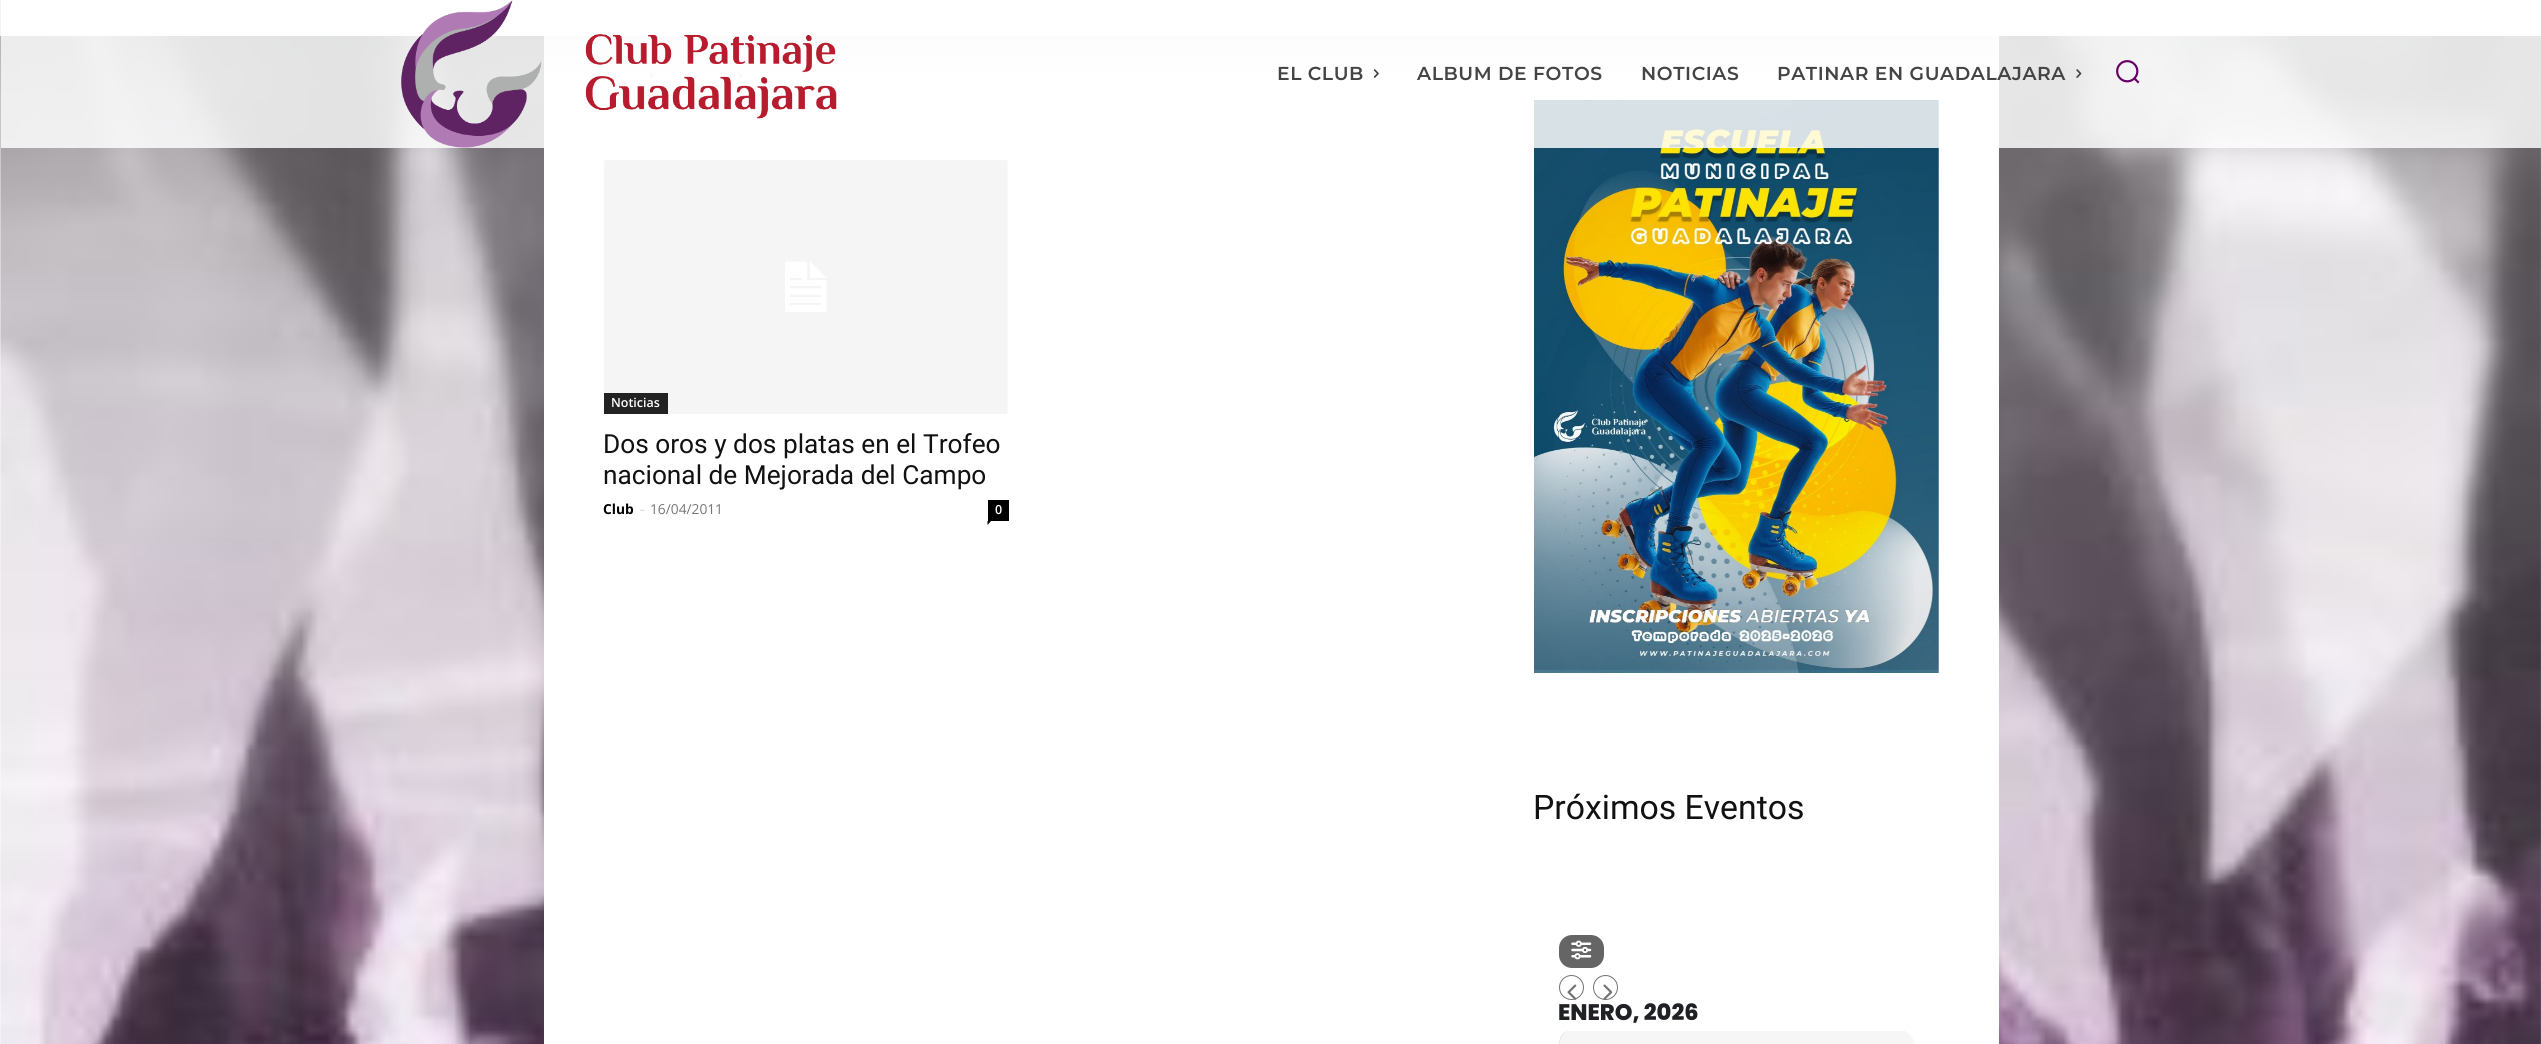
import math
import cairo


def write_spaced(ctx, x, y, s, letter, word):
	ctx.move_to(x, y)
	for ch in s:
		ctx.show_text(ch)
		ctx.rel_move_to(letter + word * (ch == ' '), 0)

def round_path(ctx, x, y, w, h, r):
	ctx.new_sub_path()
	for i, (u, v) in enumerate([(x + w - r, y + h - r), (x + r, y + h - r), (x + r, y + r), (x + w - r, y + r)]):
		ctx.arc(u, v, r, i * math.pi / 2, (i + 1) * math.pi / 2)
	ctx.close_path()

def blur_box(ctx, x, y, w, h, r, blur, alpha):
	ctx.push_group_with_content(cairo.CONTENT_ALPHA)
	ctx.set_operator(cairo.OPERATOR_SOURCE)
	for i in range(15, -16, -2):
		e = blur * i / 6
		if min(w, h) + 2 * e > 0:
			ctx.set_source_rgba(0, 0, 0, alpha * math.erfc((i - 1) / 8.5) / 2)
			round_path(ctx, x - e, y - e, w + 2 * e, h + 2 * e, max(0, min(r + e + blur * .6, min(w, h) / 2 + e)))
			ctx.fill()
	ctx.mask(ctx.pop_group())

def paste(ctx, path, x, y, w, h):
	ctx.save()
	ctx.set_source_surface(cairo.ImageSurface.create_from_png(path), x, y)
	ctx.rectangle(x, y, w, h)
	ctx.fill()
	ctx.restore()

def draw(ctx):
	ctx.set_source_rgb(1, 1, 1)
	ctx.paint()
	paste(ctx, 'media/1.png', 0, 36, 2541, 1008)
	ctx.set_source_rgb(1, 1, 1)
	ctx.rectangle(544, 36, 1455, 1008)
	ctx.fill()
	paste(ctx, 'media/6.png', 650, 72, 4, 7)
	paste(ctx, 'media/7.png', 738, 72, 4, 7)
	paste(ctx, 'media/9.png', 1534, 100, 405, 573)
	ctx.save()
	ctx.set_fill_rule(cairo.FILL_RULE_EVEN_ODD)
	ctx.new_path()
	ctx.move_to(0, 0)
	ctx.line_to(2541, 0)
	ctx.line_to(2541, 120)
	ctx.line_to(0, 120)
	ctx.close_path()
	ctx.move_to(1, -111)
	ctx.line_to(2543, -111)
	ctx.line_to(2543, 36)
	ctx.line_to(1, 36)
	ctx.close_path()
	ctx.clip()
	ctx.set_source_rgb(0.008, 0.008, 0.278)
	blur_box(ctx, 1, -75, 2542, 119, 0, 25, 0.1)
	ctx.restore()
	ctx.set_source_rgba(1, 1, 1, 0.83)
	ctx.rectangle(1, 36, 2540, 112)
	ctx.fill()
	paste(ctx, 'media/2.png', 401, 0, 436, 148)
	ctx.select_font_face('Montserrat SemiBold')
	ctx.set_font_size(18.75)
	ctx.set_source_rgb(0.267, 0.267, 0.267)
	write_spaced(ctx, 1277, 80, 'EL CLUB', 0.6, 0)
	paste(ctx, 'media/3.png', 1373, 69, 6, 9)
	for x, y, s in [
		(1417, 80, 'ALBUM DE FOTOS'),
		(1641, 80, 'NOTICIAS'),
		(1777, 80, 'PATINAR EN GUADALAJARA'),
	]:
		write_spaced(ctx, x, y, s, 0.6, 0)
	paste(ctx, 'media/4.png', 2076, 69, 6, 9)
	paste(ctx, 'media/5.png', 2116, 60, 24, 24)
	paste(ctx, 'media/8.png', 604, 160, 404, 254)
	ctx.set_source_rgb(0.133, 0.133, 0.133)
	ctx.rectangle(604, 393, 64, 21)
	ctx.fill()
	ctx.select_font_face('Open Sans SemiBold')
	ctx.set_font_size(12.5)
	ctx.set_source_rgb(1, 1, 1)
	ctx.move_to(611, 407)
	ctx.show_text('Noticias')
	ctx.select_font_face('Roboto')
	ctx.set_font_size(26.25)
	ctx.set_source_rgb(0.067, 0.067, 0.067)
	ctx.move_to(603, 453)
	ctx.show_text('Dos oros y dos platas en el Trofeo')
	ctx.move_to(603, 484)
	ctx.show_text('nacional de Mejorada del Campo')
	ctx.select_font_face('Open Sans', cairo.FONT_SLANT_NORMAL, cairo.FONT_WEIGHT_BOLD)
	ctx.set_font_size(13.75)
	ctx.set_source_rgb(0, 0, 0)
	ctx.move_to(603, 514)
	ctx.show_text('Club')
	ctx.select_font_face('Open Sans')
	ctx.set_source_rgb(0.8, 0.8, 0.8)
	ctx.move_to(640, 514)
	ctx.show_text('-')
	ctx.set_source_rgb(0.463, 0.463, 0.463)
	ctx.move_to(650, 514)
	ctx.show_text('16/04/2011')
	ctx.set_source_rgb(0, 0, 0)
	ctx.rectangle(988, 500, 21, 21)
	ctx.fill()
	ctx.select_font_face('Open Sans SemiBold')
	ctx.set_font_size(12.5)
	ctx.set_source_rgb(1, 1, 1)
	ctx.move_to(995, 514)
	ctx.show_text('0')
	ctx.set_source_rgb(0, 0, 0)
	ctx.new_path()
	ctx.move_to(987.5, 521)
	ctx.line_to(991, 521)
	ctx.line_to(987.5, 525)
	ctx.close_path()
	ctx.fill()
	ctx.select_font_face('Roboto')
	ctx.set_font_size(33.75)
	ctx.set_source_rgb(0.067, 0.067, 0.067)
	ctx.move_to(1533, 819)
	ctx.show_text('Próximos Eventos')
	ctx.set_source_rgb(0.396, 0.396, 0.396)
	round_path(ctx, 1559, 935, 45, 33, 13)
	ctx.fill()
	paste(ctx, 'media/10.png', 1571, 940, 21, 20)
	ctx.arc(1571.5, 987.5, 12, 0, 2 * math.pi)
	ctx.set_source_rgb(0.451, 0.451, 0.451)
	ctx.set_line_width(1)
	ctx.stroke()
	paste(ctx, 'media/11.png', 1567, 984, 10, 16)
	ctx.arc(1605.5, 987.5, 12, 0, 2 * math.pi)
	ctx.stroke()
	paste(ctx, 'media/12.png', 1603, 984, 10, 16)
	ctx.select_font_face('Poppins ExtraBold')
	ctx.set_font_size(22.5)
	ctx.set_source_rgb(0.125, 0.129, 0.141)
	ctx.move_to(1558, 1020)
	ctx.show_text('ENERO, 2026')
	ctx.set_source_rgb(0.898, 0.898, 0.898)
	ctx.set_fill_rule(cairo.FILL_RULE_EVEN_ODD)
	ctx.new_path()
	ctx.move_to(1571, 1031)
	ctx.line_to(1901, 1031)
	ctx.curve_to(1904, 1031, 1907, 1032, 1909, 1034)
	ctx.line_to(1904, 1032)
	ctx.close_path()
	ctx.move_to(1913, 1039)
	ctx.curve_to(1912, 1037, 1911, 1035, 1909, 1034)
	ctx.curve_to(1911, 1035, 1912, 1037, 1913, 1039)
	ctx.close_path()
	ctx.move_to(1914, 1044)
	ctx.line_to(1913, 1039)
	ctx.close_path()
	ctx.move_to(1571, 1031)
	ctx.curve_to(1557, 1031, 1559, 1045, 1559, 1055)
	ctx.curve_to(1559, 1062, 1557, 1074, 1565, 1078)
	ctx.line_to(1571, 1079)
	ctx.line_to(1904, 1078)
	ctx.line_to(1908, 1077)
	ctx.curve_to(1912, 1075, 1914, 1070, 1914, 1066)
	ctx.line_to(1914, 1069)
	ctx.curve_to(1912, 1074, 1907, 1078, 1901, 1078)
	ctx.line_to(1571, 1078)
	ctx.curve_to(1565, 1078, 1560, 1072, 1560, 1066)
	ctx.line_to(1560, 1044)
	ctx.curve_to(1560, 1037, 1565, 1031, 1571, 1031)
	ctx.close_path()
	ctx.fill()
	ctx.set_source_rgb(0.961, 0.961, 0.961)
	ctx.set_fill_rule(cairo.FILL_RULE_WINDING)
	ctx.new_path()
	ctx.move_to(1571, 1031)
	ctx.curve_to(1565, 1031, 1560, 1037, 1560, 1044)
	ctx.line_to(1560, 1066)
	ctx.curve_to(1560, 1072, 1565, 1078, 1571, 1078)
	ctx.line_to(1901, 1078)
	ctx.curve_to(1908, 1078, 1914, 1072, 1914, 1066)
	ctx.line_to(1914, 1044)
	ctx.curve_to(1914, 1037, 1908, 1031, 1901, 1031)
	ctx.close_path()
	ctx.fill()


surface = cairo.ImageSurface(cairo.FORMAT_RGB24, 2541, 1044)
ctx = cairo.Context(surface)
options = cairo.FontOptions()
options.set_hint_metrics(cairo.HINT_METRICS_OFF)
options.set_hint_style(cairo.HINT_STYLE_NONE)
ctx.set_font_options(options)
ctx.set_miter_limit(4)
draw(ctx)
surface.write_to_png('image.png')
